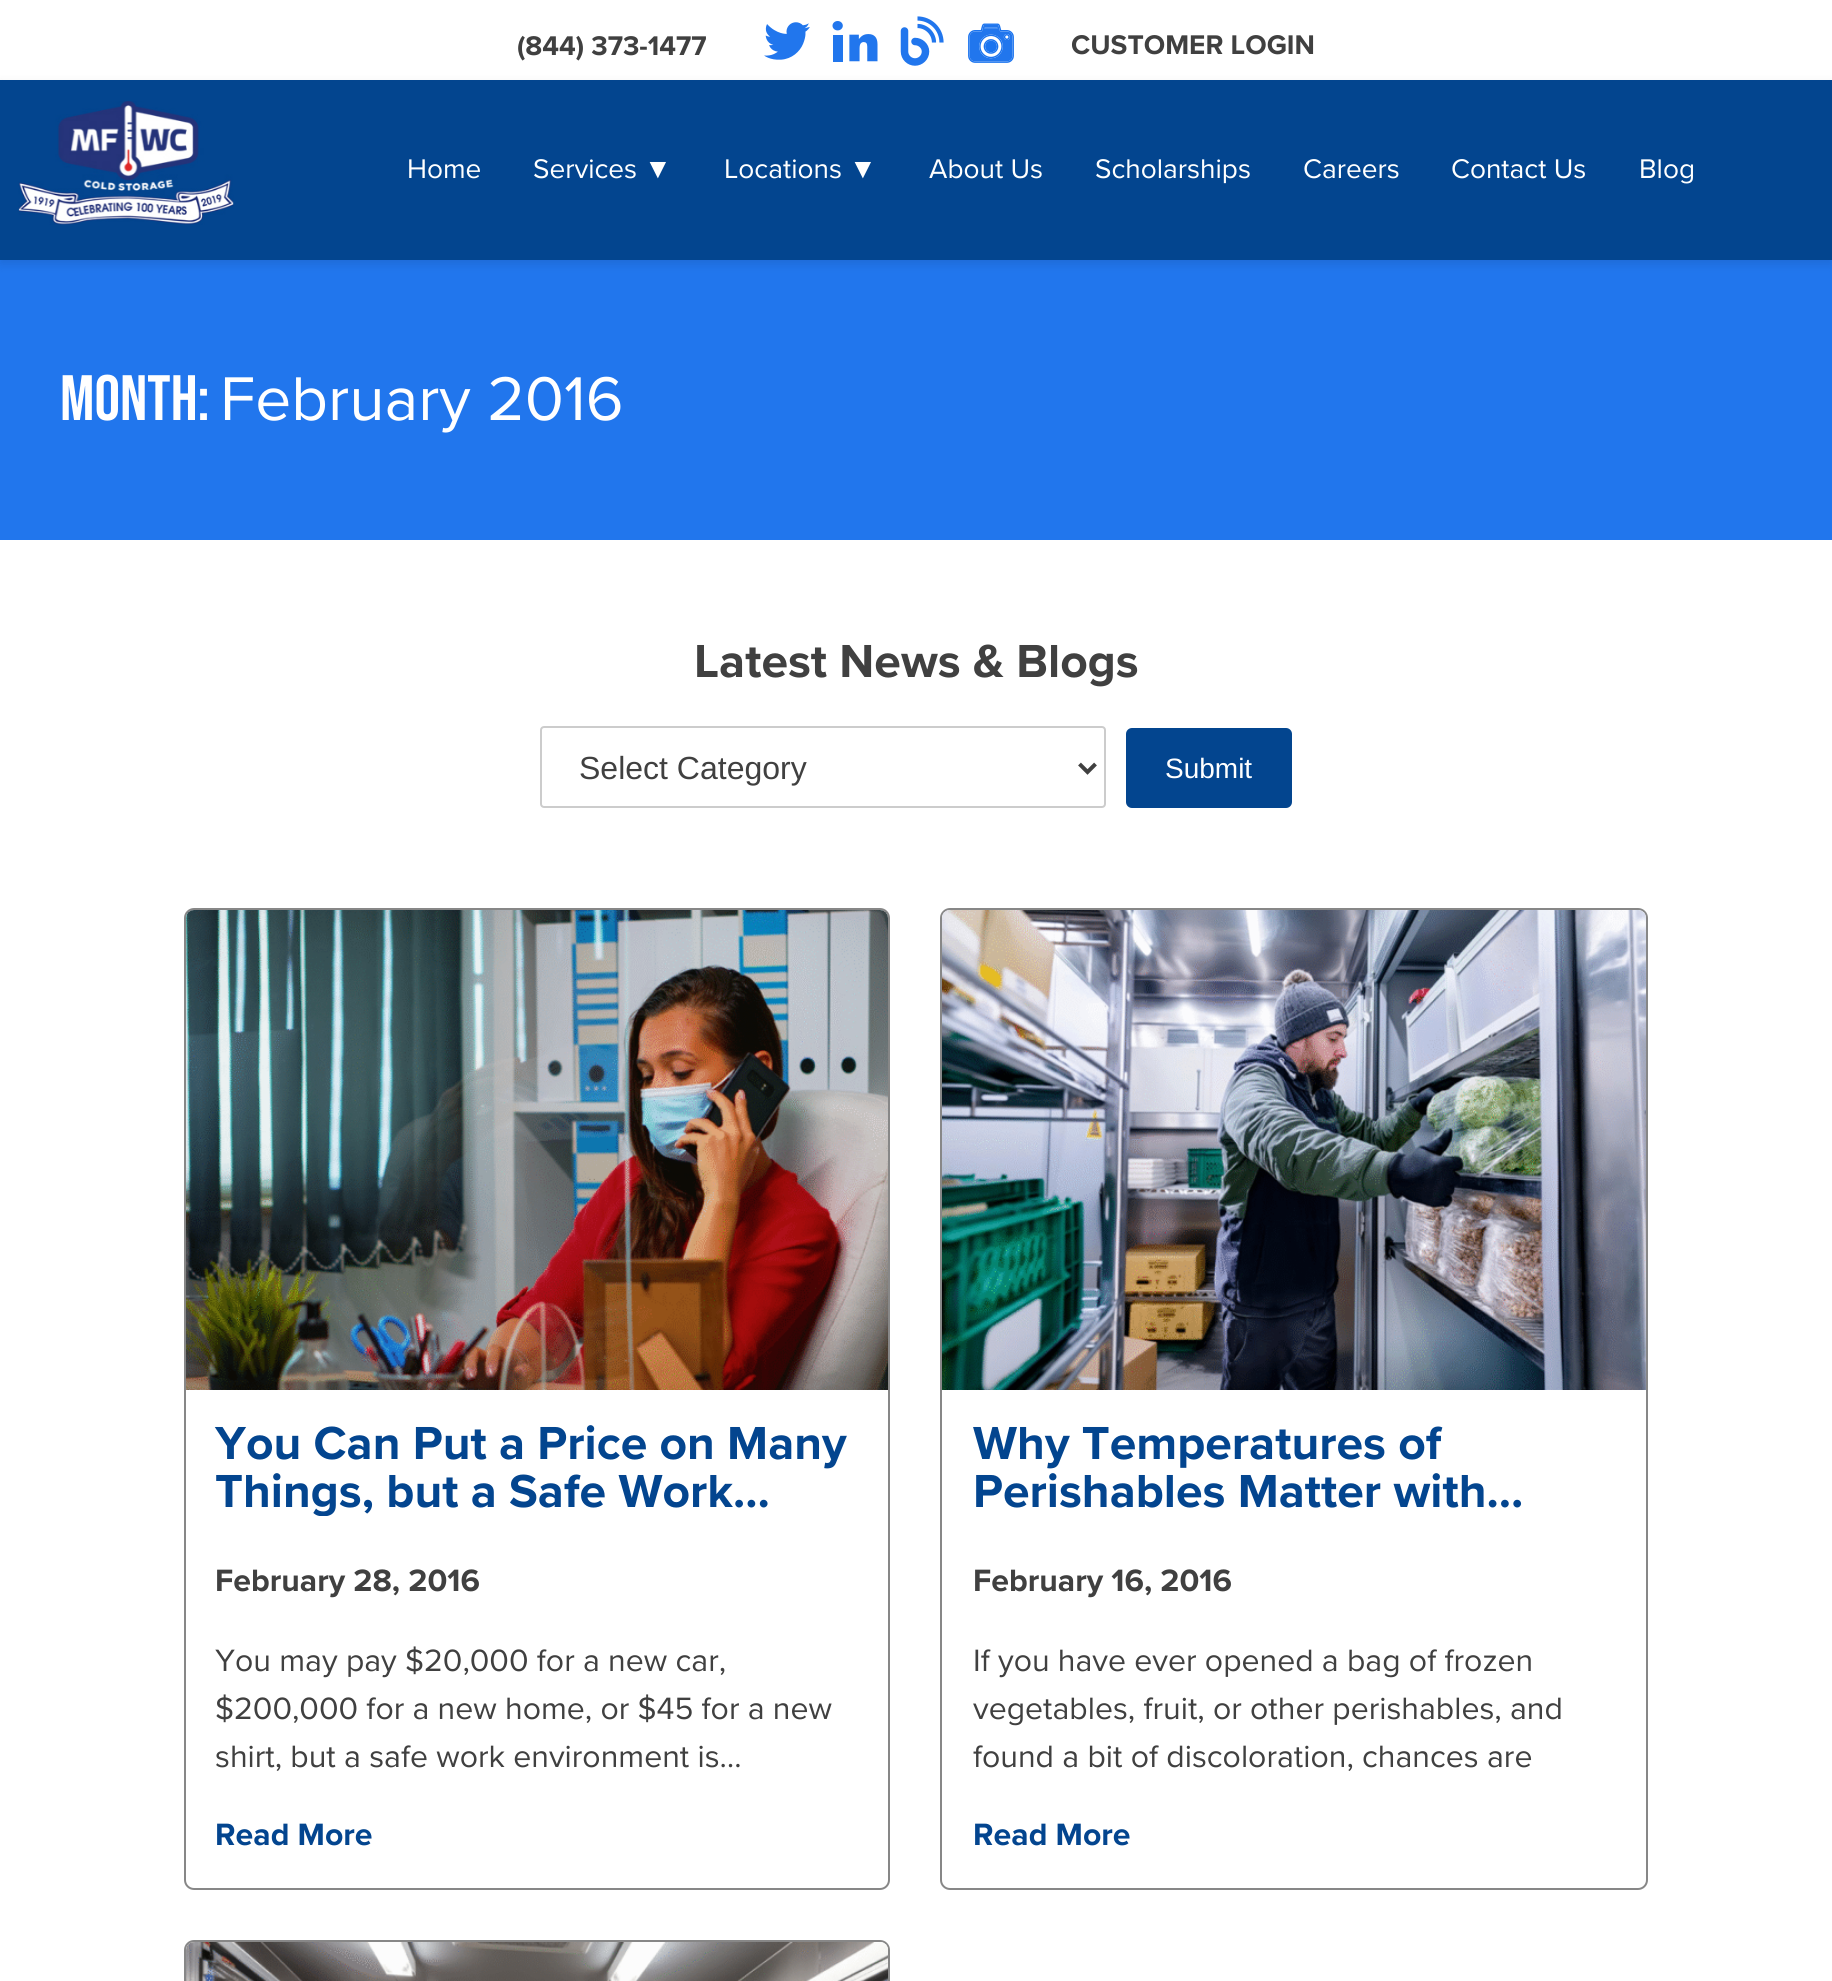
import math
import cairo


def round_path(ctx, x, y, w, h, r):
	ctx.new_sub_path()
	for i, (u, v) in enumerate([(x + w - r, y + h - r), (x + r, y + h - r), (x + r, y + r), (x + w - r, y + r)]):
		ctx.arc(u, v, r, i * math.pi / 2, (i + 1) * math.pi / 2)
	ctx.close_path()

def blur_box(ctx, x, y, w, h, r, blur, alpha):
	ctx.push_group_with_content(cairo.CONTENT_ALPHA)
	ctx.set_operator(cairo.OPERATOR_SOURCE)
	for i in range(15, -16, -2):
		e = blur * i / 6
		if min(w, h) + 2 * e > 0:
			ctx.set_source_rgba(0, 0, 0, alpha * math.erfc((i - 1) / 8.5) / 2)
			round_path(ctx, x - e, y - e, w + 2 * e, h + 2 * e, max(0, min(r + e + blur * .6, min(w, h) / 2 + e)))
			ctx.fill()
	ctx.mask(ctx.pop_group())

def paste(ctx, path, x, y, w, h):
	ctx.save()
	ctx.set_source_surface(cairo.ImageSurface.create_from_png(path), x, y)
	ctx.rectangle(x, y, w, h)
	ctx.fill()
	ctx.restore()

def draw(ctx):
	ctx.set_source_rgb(0.129, 0.463, 0.929)
	ctx.paint()
	ctx.set_source_rgb(1, 1, 1)
	ctx.rectangle(0, 0, 1832, 80)
	ctx.fill()
	ctx.select_font_face('Proxima Nova', cairo.FONT_SLANT_NORMAL, cairo.FONT_WEIGHT_BOLD)
	ctx.set_font_size(28)
	ctx.set_source_rgb(0.251, 0.251, 0.251)
	ctx.move_to(517, 55)
	ctx.show_text('(844) 373-1477')
	paste(ctx, 'media/1.png', 764, 22, 46, 38)
	paste(ctx, 'media/2.png', 832, 21, 46, 41)
	ctx.new_path()
	ctx.move_to(904.5, 31)
	ctx.line_to(904.5, 51.5)
	ctx.curve_to(904.5, 57.5, 909.5, 62, 915, 62)
	ctx.curve_to(920.5, 62, 925.5, 57.5, 925.5, 51.5)
	ctx.curve_to(925.5, 46, 920.5, 41.5, 915, 41.5)
	ctx.set_source_rgb(0.129, 0.463, 0.929)
	ctx.set_line_width(7.5)
	ctx.set_line_cap(cairo.LINE_CAP_ROUND)
	ctx.stroke()
	ctx.new_path()
	ctx.move_to(917.5, 26)
	ctx.curve_to(926.5, 26, 934, 33.5, 934, 42.5)
	ctx.move_to(917.5, 18.5)
	ctx.curve_to(930.5, 18.5, 941.5, 29, 941.5, 42.5)
	ctx.set_line_width(4.2)
	ctx.set_line_cap(cairo.LINE_CAP_BUTT)
	ctx.stroke()
	paste(ctx, 'media/3.png', 968, 23, 46, 40)
	ctx.set_source_rgb(0.251, 0.251, 0.251)
	ctx.move_to(1071, 54)
	ctx.show_text('CUSTOMER LOGIN')
	ctx.set_source_rgb(0, 0, 0)
	blur_box(ctx, 0, 84, 1832, 180, 0, 5, 0.1)
	ctx.set_source_rgb(0.012, 0.271, 0.561)
	ctx.rectangle(0, 80, 1832, 180)
	ctx.fill()
	paste(ctx, 'media/4.png', 18, 101, 216, 124)
	ctx.select_font_face('Proxima Nova')
	ctx.set_source_rgb(1, 1, 1)
	ctx.move_to(407, 178)
	ctx.show_text('Home')
	ctx.move_to(533, 178)
	ctx.show_text('Services')
	ctx.select_font_face('Liberation Sans')
	ctx.move_to(644, 178)
	ctx.show_text('▼')
	ctx.select_font_face('Proxima Nova')
	ctx.move_to(724, 178)
	ctx.show_text('Locations')
	ctx.select_font_face('Liberation Sans')
	ctx.move_to(849, 178)
	ctx.show_text('▼')
	ctx.select_font_face('Proxima Nova')
	for x, y, s in [
		(929, 178, 'About Us'),
		(1095, 178, 'Scholarships'),
		(1303, 178, 'Careers'),
		(1451, 178, 'Contact Us'),
		(1639, 178, 'Blog'),
	]:
		ctx.move_to(x, y)
		ctx.show_text(s)
	ctx.select_font_face('Bebas Neue')
	ctx.set_font_size(64)
	ctx.move_to(60, 420)
	ctx.show_text('Month:')
	ctx.select_font_face('Proxima Nova')
	ctx.move_to(220, 420)
	ctx.show_text('February 2016')
	ctx.rectangle(0, 540, 1832, 1441)
	ctx.fill()
	ctx.select_font_face('Proxima Nova', cairo.FONT_SLANT_NORMAL, cairo.FONT_WEIGHT_BOLD)
	ctx.set_font_size(48)
	ctx.set_source_rgb(0.251, 0.251, 0.251)
	ctx.move_to(694, 677)
	ctx.show_text('Latest News & Blogs')
	round_path(ctx, 541, 727, 564, 80, 3)
	ctx.set_source_rgb(0.8, 0.8, 0.8)
	ctx.set_line_width(2)
	ctx.stroke()
	ctx.new_path()
	ctx.move_to(1079.5, 764)
	ctx.line_to(1087.5, 772)
	ctx.line_to(1095.5, 764)
	ctx.set_source_rgb(0.251, 0.251, 0.251)
	ctx.set_line_width(4)
	ctx.stroke()
	ctx.select_font_face('Liberation Sans')
	ctx.set_font_size(32)
	ctx.move_to(579, 779)
	ctx.show_text('Select Category')
	ctx.set_source_rgb(0.012, 0.271, 0.561)
	round_path(ctx, 1126, 728, 166, 80, 6)
	ctx.fill()
	ctx.set_font_size(28)
	ctx.set_source_rgb(1, 1, 1)
	ctx.move_to(1165, 778)
	ctx.show_text('Submit')
	round_path(ctx, 185, 909, 704, 980, 9)
	ctx.set_source_rgb(0.529, 0.529, 0.529)
	ctx.set_line_width(2)
	ctx.stroke()
	paste(ctx, 'media/5.png', 186, 910, 702, 480)
	ctx.select_font_face('Proxima Nova', cairo.FONT_SLANT_NORMAL, cairo.FONT_WEIGHT_BOLD)
	ctx.set_font_size(48)
	ctx.set_source_rgb(0.012, 0.271, 0.561)
	ctx.move_to(215, 1459)
	ctx.show_text('You Can Put a Price on Many')
	ctx.save()
	ctx.rectangle(216, 1420, 642, 96)
	ctx.clip()
	ctx.move_to(215, 1507)
	ctx.show_text('Things, but a Safe Work…')
	ctx.restore()
	ctx.set_font_size(32)
	ctx.set_source_rgb(0.251, 0.251, 0.251)
	ctx.move_to(215, 1591)
	ctx.show_text('February 28, 2016')
	ctx.select_font_face('Proxima Nova')
	for x, y, s in [
		(215, 1671, 'You may pay $20,000 for a new car,'),
		(215, 1719, '$200,000 for a new home, or $45 for a new'),
		(215, 1767, 'shirt, but a safe work environment is…'),
	]:
		ctx.move_to(x, y)
		ctx.show_text(s)
	ctx.select_font_face('Proxima Nova', cairo.FONT_SLANT_NORMAL, cairo.FONT_WEIGHT_BOLD)
	ctx.set_source_rgb(0.012, 0.271, 0.561)
	ctx.move_to(215, 1845)
	ctx.show_text('Read More')
	round_path(ctx, 941, 909, 706, 980, 9)
	ctx.set_source_rgb(0.529, 0.529, 0.529)
	ctx.stroke()
	paste(ctx, 'media/6.png', 942, 910, 704, 480)
	ctx.set_font_size(48)
	ctx.set_source_rgb(0.012, 0.271, 0.561)
	ctx.move_to(973, 1459)
	ctx.show_text('Why Temperatures of')
	ctx.move_to(973, 1507)
	ctx.show_text('Perishables Matter with…')
	ctx.set_font_size(32)
	ctx.set_source_rgb(0.251, 0.251, 0.251)
	ctx.move_to(973, 1591)
	ctx.show_text('February 16, 2016')
	ctx.select_font_face('Proxima Nova')
	for x, y, s in [
		(973, 1671, 'If you have ever opened a bag of frozen'),
		(973, 1719, 'vegetables, fruit, or other perishables, and'),
		(973, 1767, 'found a bit of discoloration, chances are'),
	]:
		ctx.move_to(x, y)
		ctx.show_text(s)
	ctx.select_font_face('Proxima Nova', cairo.FONT_SLANT_NORMAL, cairo.FONT_WEIGHT_BOLD)
	ctx.set_source_rgb(0.012, 0.271, 0.561)
	ctx.move_to(973, 1845)
	ctx.show_text('Read More')
	round_path(ctx, 185, 1941, 704, 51, 9)
	ctx.set_source_rgb(0.529, 0.529, 0.529)
	ctx.stroke()
	paste(ctx, 'media/7.png', 186, 1942, 702, 39)


surface = cairo.ImageSurface(cairo.FORMAT_RGB24, 1832, 1981)
ctx = cairo.Context(surface)
options = cairo.FontOptions()
options.set_hint_metrics(cairo.HINT_METRICS_OFF)
options.set_hint_style(cairo.HINT_STYLE_NONE)
ctx.set_font_options(options)
ctx.set_miter_limit(4)
draw(ctx)
surface.write_to_png('image.png')
